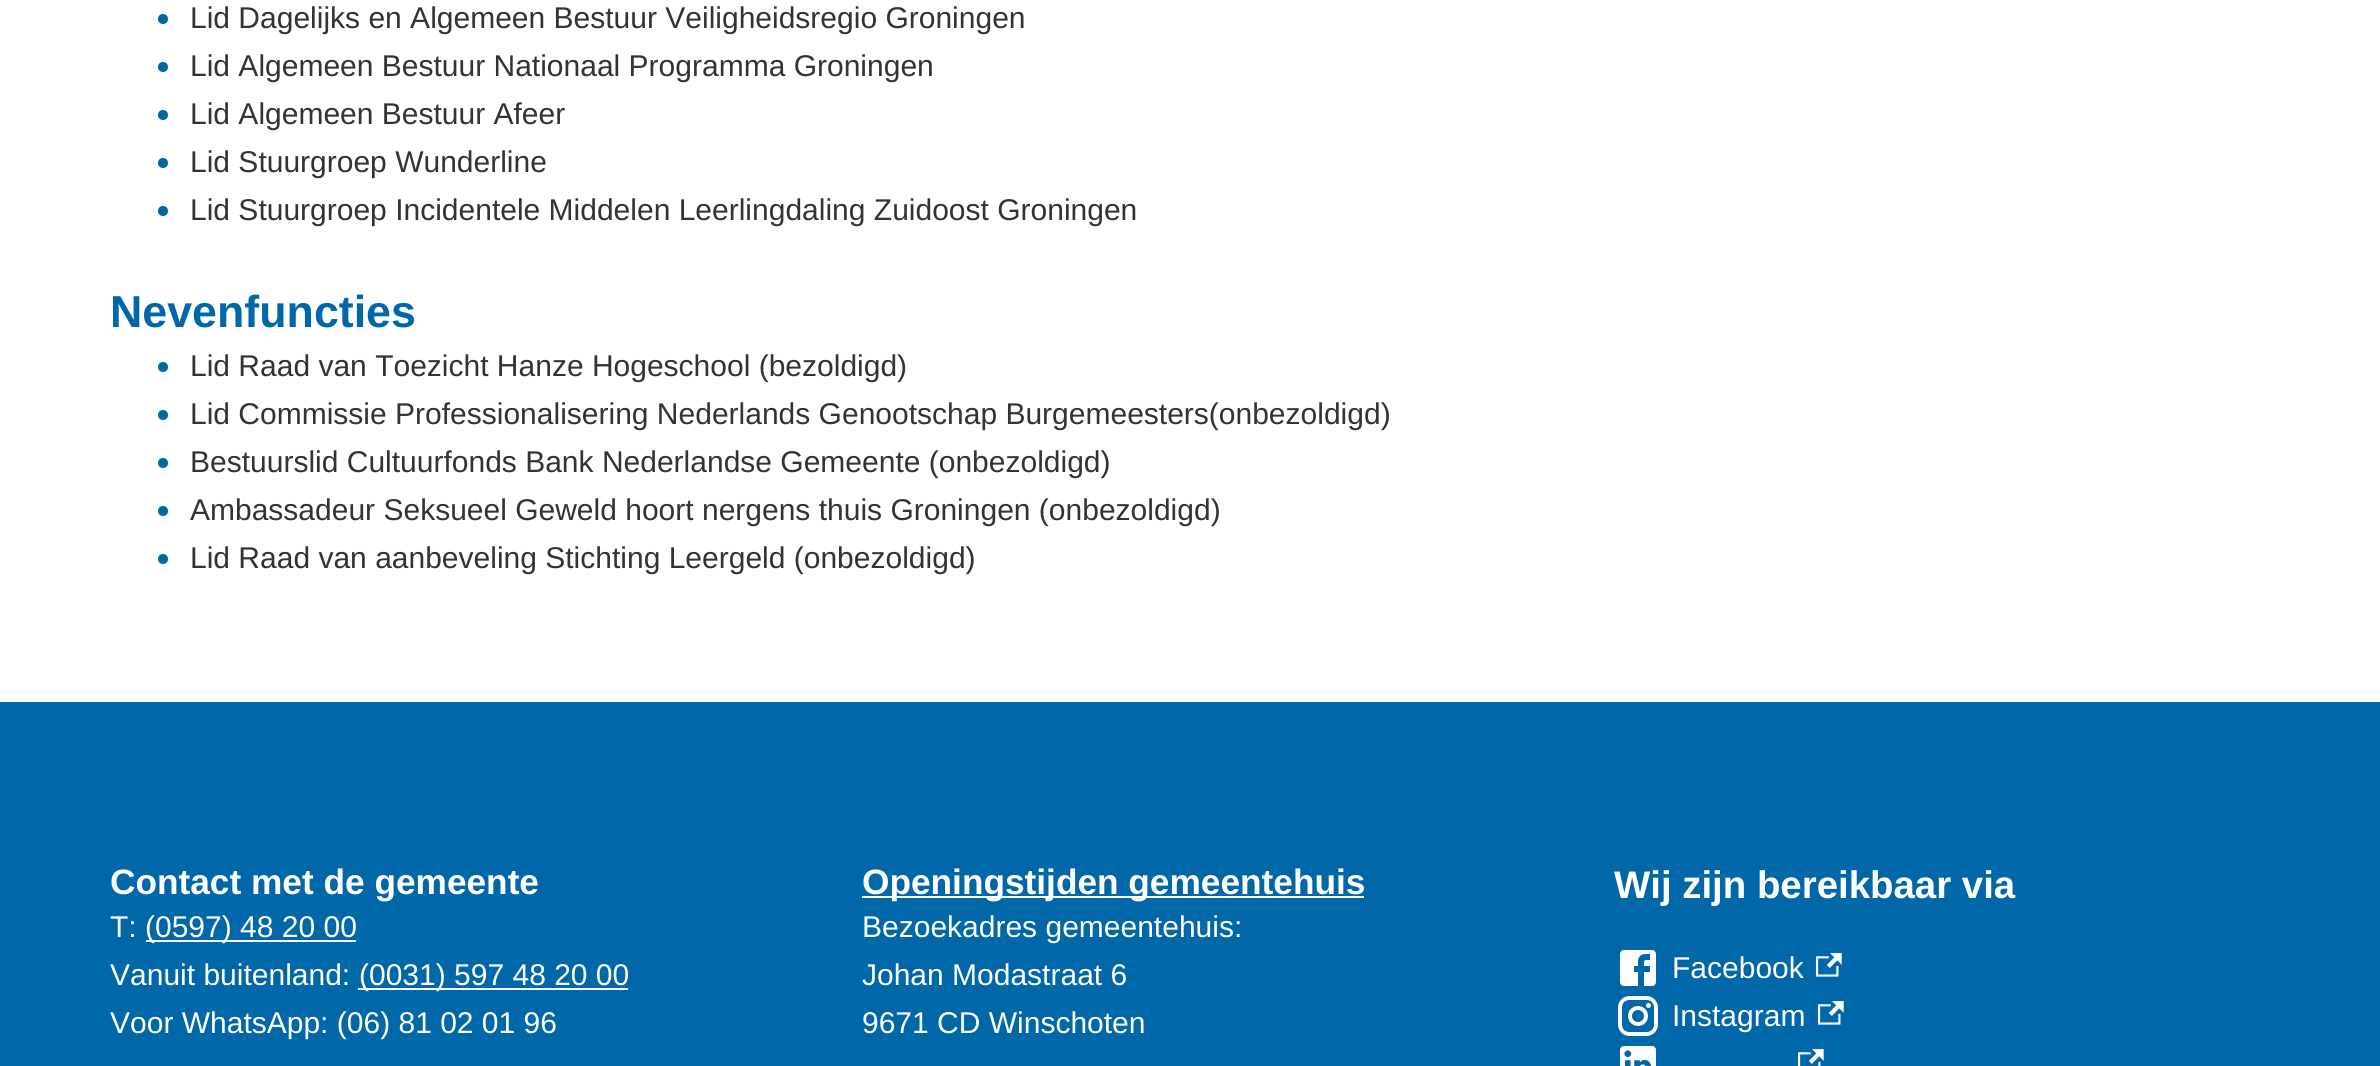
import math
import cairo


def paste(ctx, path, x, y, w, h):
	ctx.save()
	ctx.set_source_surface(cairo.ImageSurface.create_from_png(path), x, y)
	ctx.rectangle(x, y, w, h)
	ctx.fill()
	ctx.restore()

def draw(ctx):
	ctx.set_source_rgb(1, 1, 1)
	ctx.paint()
	ctx.set_source_rgb(0, 0.404, 0.659)
	ctx.arc(163, 19, 5, 0, 2 * math.pi)
	ctx.fill()
	ctx.select_font_face('Liberation Sans')
	ctx.set_font_size(30)
	ctx.set_source_rgb(0.2, 0.2, 0.2)
	ctx.move_to(190, 28)
	ctx.show_text('Lid Dagelijks en Algemeen Bestuur Veiligheidsregio Groningen')
	ctx.set_source_rgb(0, 0.404, 0.659)
	ctx.new_path()
	ctx.arc(163, 67, 5, 0, 2 * math.pi)
	ctx.fill()
	ctx.set_source_rgb(0.2, 0.2, 0.2)
	ctx.move_to(190, 76)
	ctx.show_text('Lid Algemeen Bestuur Nationaal Programma Groningen')
	ctx.set_source_rgb(0, 0.404, 0.659)
	ctx.new_path()
	ctx.arc(163, 115, 5, 0, 2 * math.pi)
	ctx.fill()
	ctx.set_source_rgb(0.2, 0.2, 0.2)
	ctx.move_to(190, 124)
	ctx.show_text('Lid Algemeen Bestuur Afeer')
	ctx.set_source_rgb(0, 0.404, 0.659)
	ctx.new_path()
	ctx.arc(163, 163, 5, 0, 2 * math.pi)
	ctx.fill()
	ctx.set_source_rgb(0.2, 0.2, 0.2)
	ctx.move_to(190, 172)
	ctx.show_text('Lid Stuurgroep Wunderline')
	ctx.set_source_rgb(0, 0.404, 0.659)
	ctx.new_path()
	ctx.arc(163, 211, 5, 0, 2 * math.pi)
	ctx.fill()
	ctx.set_source_rgb(0.2, 0.2, 0.2)
	ctx.move_to(190, 220)
	ctx.show_text('Lid Stuurgroep Incidentele Middelen Leerlingdaling Zuidoost Groningen')
	ctx.select_font_face('Liberation Sans', cairo.FONT_SLANT_NORMAL, cairo.FONT_WEIGHT_BOLD)
	ctx.set_font_size(44.75)
	ctx.set_source_rgb(0, 0.404, 0.659)
	ctx.move_to(110, 327)
	ctx.show_text('Nevenfuncties')
	ctx.new_path()
	ctx.arc(163, 367, 5, 0, 2 * math.pi)
	ctx.fill()
	ctx.select_font_face('Liberation Sans')
	ctx.set_font_size(30)
	ctx.set_source_rgb(0.2, 0.2, 0.2)
	ctx.move_to(190, 376)
	ctx.show_text('Lid Raad van Toezicht Hanze Hogeschool (bezoldigd)')
	ctx.set_source_rgb(0, 0.404, 0.659)
	ctx.new_path()
	ctx.arc(163, 415, 5, 0, 2 * math.pi)
	ctx.fill()
	ctx.set_source_rgb(0.2, 0.2, 0.2)
	ctx.move_to(190, 424)
	ctx.show_text('Lid Commissie Professionalisering Nederlands Genootschap Burgemeesters(onbezoldigd)')
	ctx.set_source_rgb(0, 0.404, 0.659)
	ctx.new_path()
	ctx.arc(163, 463, 5, 0, 2 * math.pi)
	ctx.fill()
	ctx.set_source_rgb(0.2, 0.2, 0.2)
	ctx.move_to(190, 472)
	ctx.show_text('Bestuurslid Cultuurfonds Bank Nederlandse Gemeente (onbezoldigd)')
	ctx.set_source_rgb(0, 0.404, 0.659)
	ctx.new_path()
	ctx.arc(163, 511, 5, 0, 2 * math.pi)
	ctx.fill()
	ctx.set_source_rgb(0.2, 0.2, 0.2)
	ctx.move_to(190, 520)
	ctx.show_text('Ambassadeur Seksueel Geweld hoort nergens thuis Groningen (onbezoldigd)')
	ctx.set_source_rgb(0, 0.404, 0.659)
	ctx.new_path()
	ctx.arc(163, 559, 5, 0, 2 * math.pi)
	ctx.fill()
	ctx.set_source_rgb(0.2, 0.2, 0.2)
	ctx.move_to(190, 568)
	ctx.show_text('Lid Raad van aanbeveling Stichting Leergeld (onbezoldigd)')
	ctx.set_source_rgb(0, 0.404, 0.659)
	ctx.rectangle(0, 702, 2380, 364)
	ctx.fill()
	ctx.select_font_face('Liberation Sans', cairo.FONT_SLANT_NORMAL, cairo.FONT_WEIGHT_BOLD)
	ctx.set_font_size(35.25)
	ctx.set_source_rgb(1, 1, 1)
	ctx.move_to(110, 894)
	ctx.show_text('Contact met de gemeente')
	ctx.select_font_face('Liberation Sans')
	ctx.set_font_size(30)
	ctx.move_to(110, 937)
	ctx.show_text('T:')
	ctx.rectangle(146, 940, 210, 2)
	ctx.fill()
	ctx.move_to(145, 937)
	ctx.show_text('(0597) 48 20 00')
	ctx.move_to(110, 985)
	ctx.show_text('Vanuit buitenland:')
	ctx.rectangle(358, 988, 270, 2)
	ctx.fill()
	ctx.move_to(359, 985)
	ctx.show_text('(0031) 597 48 20 00')
	ctx.move_to(110, 1033)
	ctx.show_text('Voor WhatsApp: (06) 81 02 01 96')
	ctx.rectangle(862, 896, 502, 2)
	ctx.fill()
	ctx.select_font_face('Liberation Sans', cairo.FONT_SLANT_NORMAL, cairo.FONT_WEIGHT_BOLD)
	ctx.set_font_size(35.25)
	ctx.move_to(862, 894)
	ctx.show_text('Openingstijden gemeentehuis')
	ctx.select_font_face('Liberation Sans')
	ctx.set_font_size(30)
	for x, y, s in [
		(862, 937, 'Bezoekadres gemeentehuis:'),
		(862, 985, 'Johan Modastraat 6'),
		(862, 1033, '9671 CD Winschoten'),
	]:
		ctx.move_to(x, y)
		ctx.show_text(s)
	ctx.select_font_face('Liberation Sans', cairo.FONT_SLANT_NORMAL, cairo.FONT_WEIGHT_BOLD)
	ctx.set_font_size(38.4)
	ctx.move_to(1614, 898)
	ctx.show_text('Wij zijn bereikbaar via')
	paste(ctx, 'media/1.png', 1620, 950, 36, 36)
	ctx.select_font_face('Liberation Sans')
	ctx.set_font_size(30)
	ctx.move_to(1672, 978)
	ctx.show_text('Facebook')
	paste(ctx, 'media/2.png', 1816, 953, 26, 24)
	paste(ctx, 'media/3.png', 1618, 996, 40, 40)
	ctx.move_to(1672, 1026)
	ctx.show_text('Instagram')
	paste(ctx, 'media/2.png', 1818, 1001, 26, 24)
	paste(ctx, 'media/4.png', 1620, 1046, 36, 20)
	paste(ctx, 'media/5.png', 1798, 1049, 26, 17)


surface = cairo.ImageSurface(cairo.FORMAT_RGB24, 2380, 1066)
ctx = cairo.Context(surface)
options = cairo.FontOptions()
options.set_hint_metrics(cairo.HINT_METRICS_OFF)
options.set_hint_style(cairo.HINT_STYLE_NONE)
ctx.set_font_options(options)
ctx.set_miter_limit(4)
draw(ctx)
surface.write_to_png('image.png')
